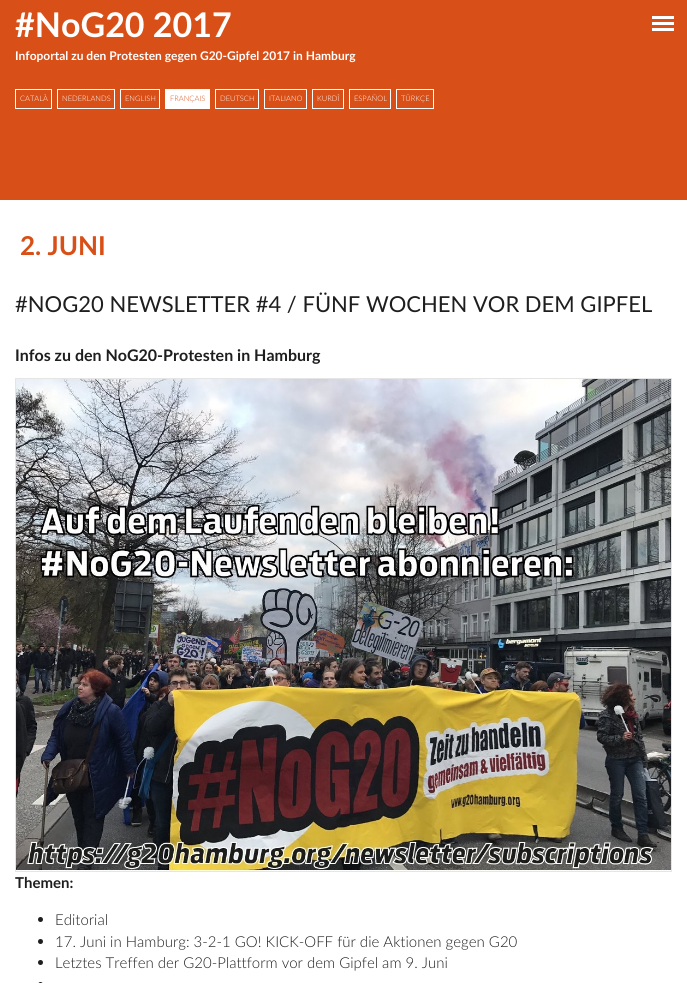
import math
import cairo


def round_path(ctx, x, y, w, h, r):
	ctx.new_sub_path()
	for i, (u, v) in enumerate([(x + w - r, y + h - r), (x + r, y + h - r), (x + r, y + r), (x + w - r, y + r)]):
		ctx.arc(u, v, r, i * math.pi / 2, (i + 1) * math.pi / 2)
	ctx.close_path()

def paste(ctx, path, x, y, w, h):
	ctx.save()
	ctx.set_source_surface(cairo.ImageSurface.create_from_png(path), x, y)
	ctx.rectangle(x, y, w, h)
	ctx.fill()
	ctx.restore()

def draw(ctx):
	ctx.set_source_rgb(1, 1, 1)
	ctx.paint()
	ctx.set_source_rgb(0.847, 0.31, 0.09)
	ctx.rectangle(0, 0, 687, 200)
	ctx.fill()
	ctx.select_font_face('Lato', cairo.FONT_SLANT_NORMAL, cairo.FONT_WEIGHT_BOLD)
	ctx.set_font_size(34)
	ctx.set_source_rgb(1, 1, 1)
	ctx.move_to(15, 37)
	ctx.show_text('#NoG20 2017')
	ctx.set_font_size(12)
	ctx.move_to(15, 60)
	ctx.show_text('Infoportal zu den Protesten gegen G20-Gipfel 2017 in Hamburg')
	ctx.rectangle(15.5, 89.5, 36, 19)
	ctx.set_line_width(1)
	ctx.stroke()
	ctx.select_font_face('Lato Light')
	ctx.set_font_size(7.5)
	ctx.move_to(20, 101)
	ctx.show_text('CATALÀ')
	ctx.rectangle(57.5, 89.5, 57, 19)
	ctx.stroke()
	ctx.move_to(62, 101)
	ctx.show_text('NEDERLANDS')
	ctx.rectangle(120.5, 89.5, 39, 19)
	ctx.stroke()
	ctx.move_to(125, 101)
	ctx.show_text('ENGLISH')
	ctx.rectangle(165, 89, 45, 20)
	ctx.fill()
	ctx.set_source_rgb(0.847, 0.31, 0.09)
	ctx.move_to(170, 101)
	ctx.show_text('FRANÇAIS')
	ctx.rectangle(215.5, 89.5, 43, 19)
	ctx.set_source_rgb(1, 1, 1)
	ctx.stroke()
	ctx.move_to(220, 101)
	ctx.show_text('DEUTSCH')
	ctx.rectangle(264.5, 89.5, 42, 19)
	ctx.stroke()
	ctx.move_to(269, 101)
	ctx.show_text('ITALIANO')
	ctx.rectangle(312.5, 89.5, 31, 19)
	ctx.stroke()
	ctx.move_to(317, 101)
	ctx.show_text('KURDÎ')
	ctx.rectangle(349.5, 89.5, 41, 19)
	ctx.stroke()
	ctx.move_to(354, 101)
	ctx.show_text('ESPAÑOL')
	ctx.rectangle(396.5, 89.5, 37, 19)
	ctx.stroke()
	ctx.move_to(401, 101)
	ctx.show_text('TÜRKÇE')
	ctx.rectangle(652, 16, 22, 3)
	ctx.rectangle(652, 22, 22, 3)
	ctx.rectangle(652, 28, 22, 3)
	ctx.fill()
	ctx.select_font_face('Lato', cairo.FONT_SLANT_NORMAL, cairo.FONT_WEIGHT_BOLD)
	ctx.set_font_size(26)
	ctx.set_source_rgb(0.847, 0.31, 0.09)
	ctx.move_to(20, 255)
	ctx.show_text('2. JUNI')
	ctx.select_font_face('Lato')
	ctx.set_font_size(22)
	ctx.set_source_rgb(0.118, 0.118, 0.118)
	ctx.move_to(15, 312)
	ctx.show_text('#NOG20 NEWSLETTER #4 / FÜNF WOCHEN VOR DEM GIPFEL')
	ctx.select_font_face('Lato', cairo.FONT_SLANT_NORMAL, cairo.FONT_WEIGHT_BOLD)
	ctx.set_font_size(16)
	ctx.move_to(15, 361)
	ctx.show_text('Infos zu den NoG20-Protesten in Hamburg')
	ctx.rectangle(15.5, 378.5, 656, 493)
	ctx.set_source_rgb(0.898, 0.898, 0.898)
	ctx.stroke()
	paste(ctx, 'media/1.png', 16, 379, 655, 492)
	ctx.set_font_size(15)
	ctx.set_source_rgb(0.118, 0.118, 0.118)
	ctx.move_to(15, 888)
	ctx.show_text('Themen:')
	ctx.new_path()
	ctx.arc(40.5, 919.5, 2.5, 0, 2 * math.pi)
	ctx.fill()
	ctx.select_font_face('Lato Light')
	ctx.move_to(55, 925)
	ctx.show_text('Editorial')
	ctx.new_path()
	ctx.arc(40.5, 941.5, 2.5, 0, 2 * math.pi)
	ctx.fill()
	ctx.move_to(55, 947)
	ctx.show_text('17. Juni in Hamburg: 3-2-1 GO! KICK-OFF für die Aktionen gegen G20')
	ctx.new_path()
	ctx.arc(40.5, 962.5, 2.5, 0, 2 * math.pi)
	ctx.fill()
	ctx.move_to(55, 968)
	ctx.show_text('Letztes Treffen der G20-Plattform vor dem Gipfel am 9. Juni')
	round_path(ctx, 38, 982, 5, 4, 2.5)
	ctx.fill()


surface = cairo.ImageSurface(cairo.FORMAT_RGB24, 687, 983)
ctx = cairo.Context(surface)
options = cairo.FontOptions()
options.set_hint_metrics(cairo.HINT_METRICS_OFF)
options.set_hint_style(cairo.HINT_STYLE_NONE)
ctx.set_font_options(options)
ctx.set_miter_limit(4)
draw(ctx)
surface.write_to_png('image.png')
